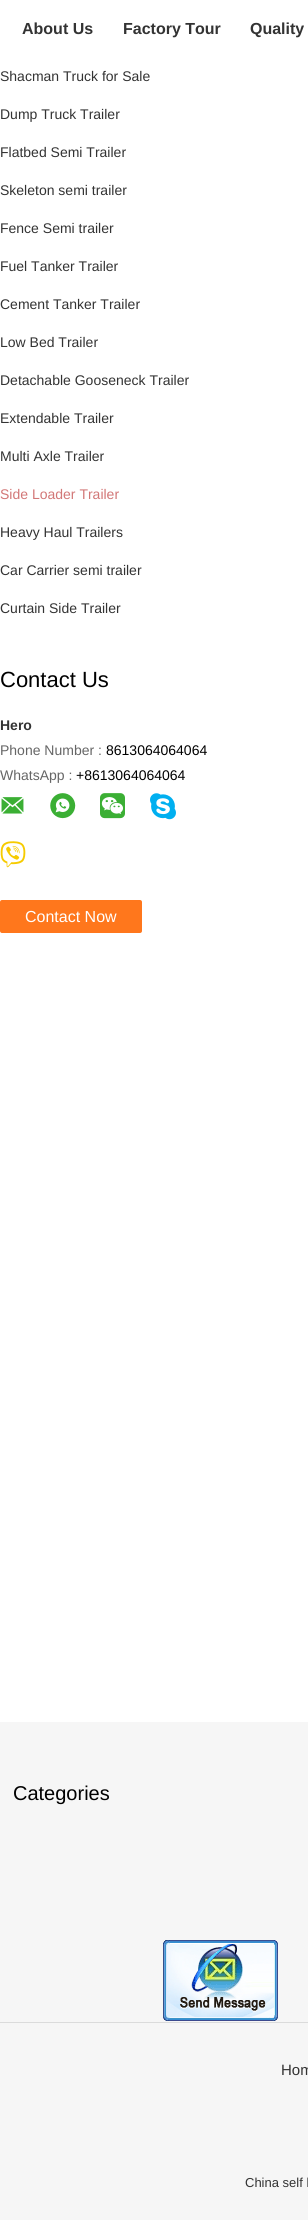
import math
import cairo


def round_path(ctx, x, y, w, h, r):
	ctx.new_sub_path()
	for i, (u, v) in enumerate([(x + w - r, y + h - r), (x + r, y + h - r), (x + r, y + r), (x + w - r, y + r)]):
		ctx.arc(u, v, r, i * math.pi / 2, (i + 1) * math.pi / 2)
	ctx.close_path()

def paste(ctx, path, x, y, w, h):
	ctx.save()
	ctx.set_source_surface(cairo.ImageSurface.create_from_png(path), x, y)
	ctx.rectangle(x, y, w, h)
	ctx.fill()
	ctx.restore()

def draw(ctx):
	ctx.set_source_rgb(1, 1, 1)
	ctx.paint()
	ctx.select_font_face('Liberation Sans', cairo.FONT_SLANT_NORMAL, cairo.FONT_WEIGHT_BOLD)
	ctx.set_font_size(16)
	ctx.set_source_rgb(0.2, 0.2, 0.2)
	for x, y, s in [
		(22, 34, 'About Us'),
		(123, 34, 'Factory Tour'),
		(250, 34, 'Quality'),
	]:
		ctx.move_to(x, y)
		ctx.show_text(s)
	ctx.select_font_face('Liberation Sans')
	ctx.set_font_size(14)
	for x, y, s in [
		(0, 81, 'Shacman Truck for Sale'),
		(0, 119, 'Dump Truck Trailer'),
		(0, 157, 'Flatbed Semi Trailer'),
		(0, 195, 'Skeleton semi trailer'),
		(0, 233, 'Fence Semi trailer'),
		(0, 271, 'Fuel Tanker Trailer'),
		(0, 309, 'Cement Tanker Trailer'),
		(0, 347, 'Low Bed Trailer'),
		(0, 385, 'Detachable Gooseneck Trailer'),
		(0, 423, 'Extendable Trailer'),
		(0, 461, 'Multi Axle Trailer'),
	]:
		ctx.move_to(x, y)
		ctx.show_text(s)
	ctx.set_source_rgb(0.824, 0.467, 0.467)
	ctx.move_to(0, 499)
	ctx.show_text('Side Loader Trailer')
	ctx.set_source_rgb(0.2, 0.2, 0.2)
	for x, y, s in [
		(0, 537, 'Heavy Haul Trailers'),
		(0, 575, 'Car Carrier semi trailer'),
		(0, 613, 'Curtain Side Trailer'),
	]:
		ctx.move_to(x, y)
		ctx.show_text(s)
	ctx.set_font_size(22)
	ctx.set_source_rgb(0, 0, 0)
	ctx.move_to(0, 687)
	ctx.show_text('Contact Us')
	ctx.select_font_face('Liberation Sans', cairo.FONT_SLANT_NORMAL, cairo.FONT_WEIGHT_BOLD)
	ctx.set_font_size(14)
	ctx.set_source_rgb(0.2, 0.2, 0.2)
	ctx.move_to(0, 730)
	ctx.show_text('Hero')
	ctx.select_font_face('Liberation Sans')
	ctx.set_source_rgb(0.4, 0.4, 0.4)
	ctx.move_to(0, 755)
	ctx.show_text('Phone Number :')
	ctx.set_source_rgb(0, 0, 0)
	ctx.move_to(106, 755)
	ctx.show_text('8613064064064')
	ctx.set_source_rgb(0.4, 0.4, 0.4)
	ctx.move_to(0, 780)
	ctx.show_text('WhatsApp :')
	ctx.set_source_rgb(0, 0, 0)
	ctx.move_to(76, 780)
	ctx.show_text('+8613064064064')
	paste(ctx, 'media/1.png', 1, 797, 23, 17)
	paste(ctx, 'media/2.png', 50, 793, 26, 26)
	paste(ctx, 'media/3.png', 100, 793, 25, 26)
	paste(ctx, 'media/4.png', 150, 793, 26, 27)
	paste(ctx, 'media/5.png', 0, 841, 26, 27)
	ctx.set_source_rgb(1, 0.467, 0.11)
	round_path(ctx, 0, 900, 142, 33, 2)
	ctx.fill()
	ctx.set_font_size(16)
	ctx.set_source_rgb(1, 1, 1)
	ctx.move_to(25, 922)
	ctx.show_text('Contact Now')
	ctx.set_source_rgb(0.961, 0.961, 0.961)
	ctx.rectangle(0, 1722, 308, 498)
	ctx.fill()
	ctx.set_font_size(20)
	ctx.set_source_rgb(0, 0, 0)
	ctx.move_to(13, 1800)
	ctx.show_text('Categories')
	ctx.set_source_rgb(0.859, 0.859, 0.859)
	ctx.rectangle(0, 2022, 308, 1)
	ctx.fill()
	ctx.set_font_size(15)
	ctx.set_source_rgb(0.2, 0.2, 0.2)
	ctx.move_to(281, 2075)
	ctx.show_text('Hom')
	ctx.set_font_size(13)
	ctx.move_to(245, 2187)
	ctx.show_text('China self l')
	paste(ctx, 'media/6.png', 163, 1940, 115, 81)


surface = cairo.ImageSurface(cairo.FORMAT_RGB24, 308, 2220)
ctx = cairo.Context(surface)
options = cairo.FontOptions()
options.set_hint_metrics(cairo.HINT_METRICS_OFF)
options.set_hint_style(cairo.HINT_STYLE_NONE)
ctx.set_font_options(options)
ctx.set_miter_limit(4)
draw(ctx)
surface.write_to_png('image.png')
